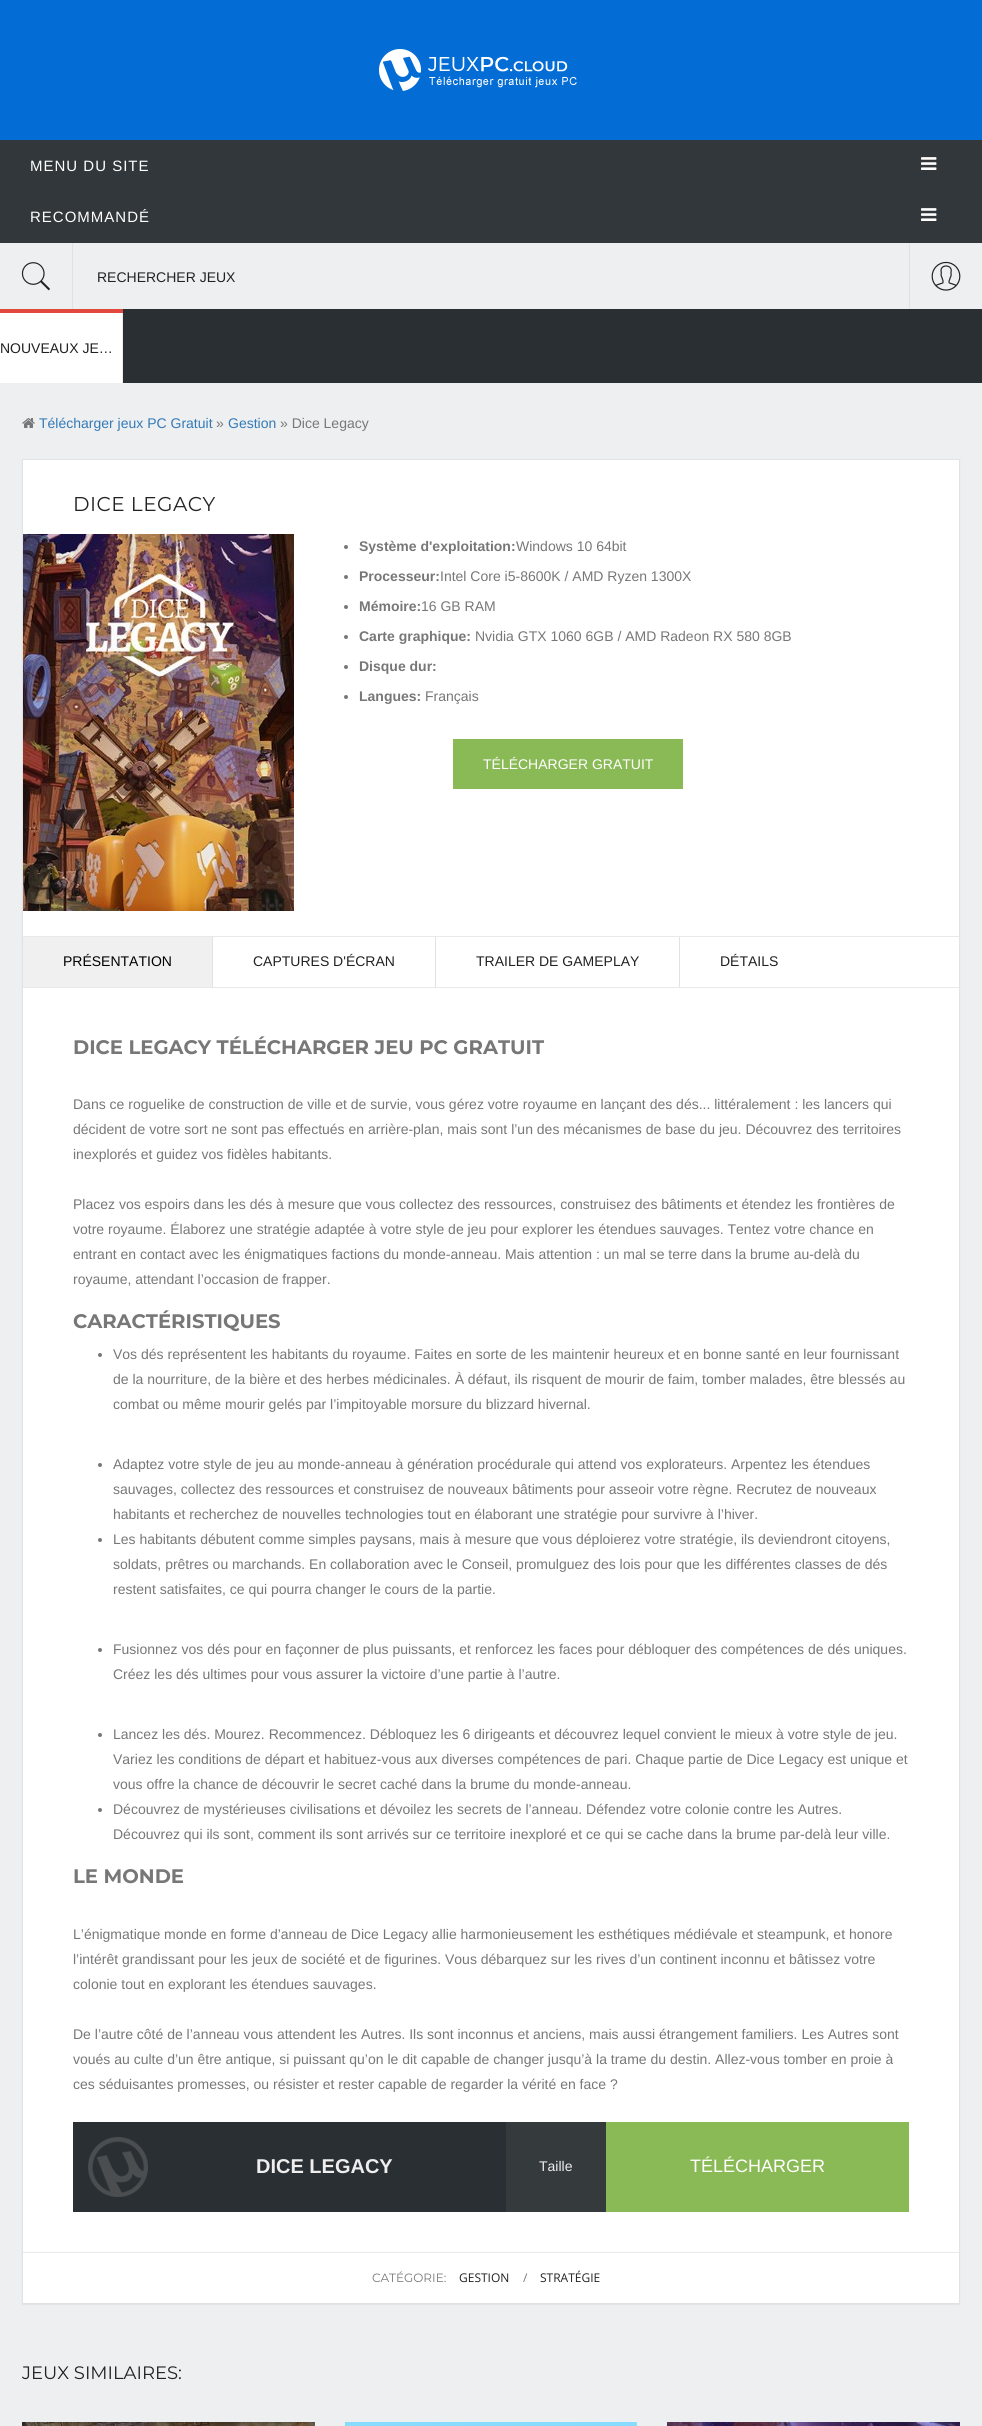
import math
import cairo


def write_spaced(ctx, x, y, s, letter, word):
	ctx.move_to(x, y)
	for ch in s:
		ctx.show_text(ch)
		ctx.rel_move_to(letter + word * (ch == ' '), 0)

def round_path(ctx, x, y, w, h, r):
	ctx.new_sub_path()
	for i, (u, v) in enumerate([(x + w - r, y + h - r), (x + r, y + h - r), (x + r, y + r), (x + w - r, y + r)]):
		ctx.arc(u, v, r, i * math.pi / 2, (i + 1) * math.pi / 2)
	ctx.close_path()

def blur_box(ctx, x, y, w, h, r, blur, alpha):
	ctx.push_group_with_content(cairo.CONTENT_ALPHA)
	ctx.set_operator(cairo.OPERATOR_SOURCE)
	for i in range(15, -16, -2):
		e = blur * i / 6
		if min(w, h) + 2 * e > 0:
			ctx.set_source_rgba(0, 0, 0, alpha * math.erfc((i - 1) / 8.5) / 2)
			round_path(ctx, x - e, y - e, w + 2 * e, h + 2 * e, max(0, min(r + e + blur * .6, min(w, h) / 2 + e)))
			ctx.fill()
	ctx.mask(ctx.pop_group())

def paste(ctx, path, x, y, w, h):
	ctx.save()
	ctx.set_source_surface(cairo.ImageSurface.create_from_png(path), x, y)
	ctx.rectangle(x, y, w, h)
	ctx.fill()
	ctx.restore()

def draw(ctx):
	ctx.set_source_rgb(0.165, 0.184, 0.2)
	ctx.paint()
	ctx.set_source_rgb(0.016, 0.427, 0.835)
	ctx.rectangle(0, 0, 982, 140)
	ctx.fill()
	paste(ctx, 'media/1.png', 379, 49, 198, 42)
	ctx.set_source_rgb(0.196, 0.216, 0.231)
	ctx.rectangle(0, 140, 982, 103)
	ctx.fill()
	ctx.select_font_face('Liberation Sans')
	ctx.set_font_size(15)
	ctx.set_source_rgb(1, 1, 1)
	write_spaced(ctx, 30, 171, 'MENU DU SITE', 1, 0)
	paste(ctx, 'media/2.png', 921, 157, 16, 13)
	write_spaced(ctx, 30, 222, 'RECOMMANDÉ', 1, 0)
	paste(ctx, 'media/2.png', 921, 208, 16, 13)
	ctx.set_source_rgb(0.929, 0.937, 0.941)
	ctx.rectangle(0, 243, 982, 66)
	ctx.fill()
	ctx.set_source_rgb(0.882, 0.878, 0.898)
	ctx.rectangle(72, 243, 1, 66)
	ctx.fill()
	paste(ctx, 'media/3.png', 21, 262, 29, 29)
	ctx.set_font_size(14)
	ctx.set_source_rgb(0.133, 0.133, 0.133)
	ctx.move_to(97, 282)
	ctx.show_text('RECHERCHER JEUX')
	ctx.set_source_rgb(0.882, 0.878, 0.898)
	ctx.rectangle(909, 243, 1, 66)
	ctx.fill()
	paste(ctx, 'media/4.png', 931, 261, 30, 30)
	ctx.set_source_rgb(1, 1, 1)
	ctx.rectangle(0, 313, 122, 70)
	ctx.fill()
	ctx.set_source_rgb(0.882, 0.286, 0.243)
	ctx.rectangle(0, 309, 123, 4)
	ctx.fill()
	ctx.set_source_rgb(0.918, 0.918, 0.918)
	ctx.rectangle(122, 313, 1, 70)
	ctx.fill()
	ctx.set_source_rgb(0.133, 0.133, 0.133)
	ctx.move_to(0, 353)
	ctx.show_text('NOUVEAUX JE…')
	ctx.set_source_rgb(0.929, 0.937, 0.941)
	ctx.rectangle(0, 383, 982, 2043)
	ctx.fill()
	paste(ctx, 'media/5.png', 22, 418, 13, 10)
	ctx.set_source_rgb(0.2, 0.478, 0.718)
	ctx.move_to(39, 428)
	ctx.show_text('Télécharger jeux PC Gratuit')
	ctx.set_source_rgb(0.467, 0.467, 0.467)
	ctx.move_to(216, 428)
	ctx.show_text('»')
	ctx.set_source_rgb(0.2, 0.478, 0.718)
	ctx.move_to(228, 428)
	ctx.show_text('Gestion')
	ctx.set_source_rgb(0.467, 0.467, 0.467)
	ctx.move_to(280, 428)
	ctx.show_text('» Dice Legacy')
	ctx.set_source_rgb(0, 0, 0)
	blur_box(ctx, 22, 460, 938, 1845, 0, 0.5, 0.06)
	ctx.set_source_rgb(1, 1, 1)
	ctx.rectangle(22.5, 459.5, 937, 1844)
	ctx.fill_preserve()
	ctx.set_source_rgb(0.886, 0.886, 0.886)
	ctx.set_line_width(1)
	ctx.stroke()
	ctx.select_font_face('Montserrat')
	ctx.set_font_size(20)
	ctx.set_source_rgb(0.133, 0.133, 0.133)
	write_spaced(ctx, 73, 511, 'DICE LEGACY', 0.5, 0)
	paste(ctx, 'media/6.png', 23, 534, 271, 377)
	ctx.set_source_rgb(0.467, 0.467, 0.467)
	ctx.arc(346, 547, 2, 0, 2 * math.pi)
	ctx.fill()
	ctx.select_font_face('Liberation Sans', cairo.FONT_SLANT_NORMAL, cairo.FONT_WEIGHT_BOLD)
	ctx.set_font_size(14)
	ctx.move_to(359, 551)
	ctx.show_text('Système d\'exploitation:')
	ctx.select_font_face('Liberation Sans')
	ctx.move_to(516, 551)
	ctx.show_text('Windows 10 64bit')
	ctx.new_path()
	ctx.arc(346, 577, 2, 0, 2 * math.pi)
	ctx.fill()
	ctx.select_font_face('Liberation Sans', cairo.FONT_SLANT_NORMAL, cairo.FONT_WEIGHT_BOLD)
	ctx.move_to(359, 581)
	ctx.show_text('Processeur:')
	ctx.select_font_face('Liberation Sans')
	ctx.move_to(440, 581)
	ctx.show_text('Intel Core i5-8600K / AMD Ryzen 1300X')
	ctx.new_path()
	ctx.arc(346, 607, 2, 0, 2 * math.pi)
	ctx.fill()
	ctx.select_font_face('Liberation Sans', cairo.FONT_SLANT_NORMAL, cairo.FONT_WEIGHT_BOLD)
	ctx.move_to(359, 611)
	ctx.show_text('Mémoire:')
	ctx.select_font_face('Liberation Sans')
	ctx.move_to(421, 611)
	ctx.show_text('16 GB RAM')
	ctx.new_path()
	ctx.arc(346, 637, 2, 0, 2 * math.pi)
	ctx.fill()
	ctx.select_font_face('Liberation Sans', cairo.FONT_SLANT_NORMAL, cairo.FONT_WEIGHT_BOLD)
	ctx.move_to(359, 641)
	ctx.show_text('Carte graphique:')
	ctx.select_font_face('Liberation Sans')
	ctx.move_to(475, 641)
	ctx.show_text('Nvidia GTX 1060 6GB / AMD Radeon RX 580 8GB')
	ctx.new_path()
	ctx.arc(346, 667, 2, 0, 2 * math.pi)
	ctx.fill()
	ctx.select_font_face('Liberation Sans', cairo.FONT_SLANT_NORMAL, cairo.FONT_WEIGHT_BOLD)
	ctx.move_to(359, 671)
	ctx.show_text('Disque dur:')
	ctx.new_path()
	ctx.arc(346, 697, 2, 0, 2 * math.pi)
	ctx.fill()
	ctx.move_to(359, 701)
	ctx.show_text('Langues:')
	ctx.select_font_face('Liberation Sans')
	ctx.move_to(425, 701)
	ctx.show_text('Français')
	ctx.set_source_rgb(0.541, 0.729, 0.337)
	ctx.rectangle(453, 739, 230, 50)
	ctx.fill()
	ctx.set_source_rgb(1, 1, 1)
	ctx.move_to(483, 769)
	ctx.show_text('TÉLÉCHARGER GRATUIT')
	ctx.set_source_rgb(0.914, 0.914, 0.914)
	ctx.rectangle(23, 936, 936, 1)
	ctx.fill()
	ctx.set_source_rgb(0.941, 0.941, 0.941)
	ctx.rectangle(23, 937, 189, 50)
	ctx.fill()
	ctx.set_source_rgb(0.886, 0.886, 0.886)
	ctx.rectangle(212, 937, 1, 50)
	ctx.fill()
	ctx.set_source_rgb(0, 0, 0)
	ctx.move_to(63, 966)
	ctx.show_text('PRÉSENTATION')
	ctx.set_source_rgb(0.886, 0.886, 0.886)
	ctx.rectangle(435, 937, 1, 50)
	ctx.fill()
	ctx.set_source_rgb(0.133, 0.133, 0.133)
	ctx.move_to(253, 966)
	ctx.show_text('CAPTURES D\'ÉCRAN')
	ctx.set_source_rgb(0.886, 0.886, 0.886)
	ctx.rectangle(679, 937, 1, 50)
	ctx.fill()
	ctx.set_source_rgb(0.133, 0.133, 0.133)
	ctx.move_to(476, 966)
	ctx.show_text('TRAILER DE GAMEPLAY')
	ctx.move_to(720, 966)
	ctx.show_text('DÉTAILS')
	ctx.set_source_rgb(0.914, 0.914, 0.914)
	ctx.rectangle(23, 987, 936, 1)
	ctx.fill()
	ctx.select_font_face('Montserrat', cairo.FONT_SLANT_NORMAL, cairo.FONT_WEIGHT_BOLD)
	ctx.set_font_size(19.6)
	ctx.set_source_rgb(0.467, 0.467, 0.467)
	ctx.move_to(73, 1054)
	ctx.show_text('DICE LEGACY TÉLÉCHARGER JEU PC GRATUIT')
	ctx.select_font_face('Liberation Sans')
	ctx.set_font_size(14)
	for x, y, s in [
		(73, 1109, 'Dans ce roguelike de construction de ville et de survie, vous gérez votre royaume en lançant des dés... littéralement : les lancers qui'),
		(73, 1134, 'décident de votre sort ne sont pas effectués en arrière-plan, mais sont l’un des mécanismes de base du jeu. Découvrez des territoires'),
		(73, 1159, 'inexplorés et guidez vos fidèles habitants.'),
		(73, 1209, 'Placez vos espoirs dans les dés à mesure que vous collectez des ressources, construisez des bâtiments et étendez les frontières de'),
		(73, 1234, 'votre royaume. Élaborez une stratégie adaptée à votre style de jeu pour explorer les étendues sauvages. Tentez votre chance en'),
		(73, 1259, 'entrant en contact avec les énigmatiques factions du monde-anneau. Mais attention : un mal se terre dans la brume au-delà du'),
		(73, 1284, 'royaume, attendant l’occasion de frapper.'),
	]:
		ctx.move_to(x, y)
		ctx.show_text(s)
	ctx.select_font_face('Montserrat', cairo.FONT_SLANT_NORMAL, cairo.FONT_WEIGHT_BOLD)
	ctx.set_font_size(19.6)
	ctx.move_to(73, 1328)
	ctx.show_text('CARACTÉRISTIQUES')
	ctx.new_path()
	ctx.arc(100, 1355, 2, 0, 2 * math.pi)
	ctx.fill()
	ctx.select_font_face('Liberation Sans')
	ctx.set_font_size(14)
	for x, y, s in [
		(113, 1359, 'Vos dés représentent les habitants du royaume. Faites en sorte de les maintenir heureux et en bonne santé en leur fournissant'),
		(113, 1384, 'de la nourriture, de la bière et des herbes médicinales. À défaut, ils risquent de mourir de faim, tomber malades, être blessés au'),
		(113, 1409, 'combat ou même mourir gelés par l’impitoyable morsure du blizzard hivernal.'),
	]:
		ctx.move_to(x, y)
		ctx.show_text(s)
	ctx.new_path()
	ctx.arc(100, 1465, 2, 0, 2 * math.pi)
	ctx.fill()
	for x, y, s in [
		(113, 1469, 'Adaptez votre style de jeu au monde-anneau à génération procédurale qui attend vos explorateurs. Arpentez les étendues'),
		(113, 1494, 'sauvages, collectez des ressources et construisez de nouveaux bâtiments pour asseoir votre règne. Recrutez de nouveaux'),
		(113, 1519, 'habitants et recherchez de nouvelles technologies tout en élaborant une stratégie pour survivre à l’hiver.'),
	]:
		ctx.move_to(x, y)
		ctx.show_text(s)
	ctx.new_path()
	ctx.arc(100, 1540, 2, 0, 2 * math.pi)
	ctx.fill()
	for x, y, s in [
		(113, 1544, 'Les habitants débutent comme simples paysans, mais à mesure que vous déploierez votre stratégie, ils deviendront citoyens,'),
		(113, 1569, 'soldats, prêtres ou marchands. En collaboration avec le Conseil, promulguez des lois pour que les différentes classes de dés'),
		(113, 1594, 'restent satisfaites, ce qui pourra changer le cours de la partie.'),
	]:
		ctx.move_to(x, y)
		ctx.show_text(s)
	ctx.new_path()
	ctx.arc(100, 1650, 2, 0, 2 * math.pi)
	ctx.fill()
	ctx.move_to(113, 1654)
	ctx.show_text('Fusionnez vos dés pour en façonner de plus puissants, et renforcez les faces pour débloquer des compétences de dés uniques.')
	ctx.move_to(113, 1679)
	ctx.show_text('Créez les dés ultimes pour vous assurer la victoire d’une partie à l’autre.')
	ctx.new_path()
	ctx.arc(100, 1735, 2, 0, 2 * math.pi)
	ctx.fill()
	for x, y, s in [
		(113, 1739, 'Lancez les dés. Mourez. Recommencez. Débloquez les 6 dirigeants et découvrez lequel convient le mieux à votre style de jeu.'),
		(113, 1764, 'Variez les conditions de départ et habituez-vous aux diverses compétences de pari. Chaque partie de Dice Legacy est unique et'),
		(113, 1789, 'vous offre la chance de découvrir le secret caché dans la brume du monde-anneau.'),
	]:
		ctx.move_to(x, y)
		ctx.show_text(s)
	ctx.new_path()
	ctx.arc(100, 1810, 2, 0, 2 * math.pi)
	ctx.fill()
	ctx.move_to(113, 1814)
	ctx.show_text('Découvrez de mystérieuses civilisations et dévoilez les secrets de l’anneau. Défendez votre colonie contre les Autres.')
	ctx.move_to(113, 1839)
	ctx.show_text('Découvrez qui ils sont, comment ils sont arrivés sur ce territoire inexploré et ce qui se cache dans la brume par-delà leur ville.')
	ctx.select_font_face('Montserrat', cairo.FONT_SLANT_NORMAL, cairo.FONT_WEIGHT_BOLD)
	ctx.set_font_size(19.6)
	ctx.move_to(73, 1883)
	ctx.show_text('LE MONDE')
	ctx.select_font_face('Liberation Sans')
	ctx.set_font_size(14)
	for x, y, s in [
		(73, 1939, 'L’énigmatique monde en forme d’anneau de Dice Legacy allie harmonieusement les esthétiques médiévale et steampunk, et honore'),
		(73, 1964, 'l’intérêt grandissant pour les jeux de société et de figurines. Vous débarquez sur les rives d’un continent inconnu et bâtissez votre'),
		(73, 1989, 'colonie tout en explorant les étendues sauvages.'),
		(73, 2039, 'De l’autre côté de l’anneau vous attendent les Autres. Ils sont inconnus et anciens, mais aussi étrangement familiers. Les Autres sont'),
		(73, 2064, 'voués au culte d’un être antique, si puissant qu’on le dit capable de changer jusqu’à la trame du destin. Allez-vous tomber en proie à'),
		(73, 2089, 'ces séduisantes promesses, ou résister et rester capable de regarder la vérité en face ?'),
	]:
		ctx.move_to(x, y)
		ctx.show_text(s)
	ctx.set_source_rgb(0.165, 0.184, 0.2)
	ctx.rectangle(73, 2122, 433, 90)
	ctx.fill()
	paste(ctx, 'media/7.png', 88, 2137, 60, 60)
	ctx.select_font_face('Liberation Sans', cairo.FONT_SLANT_NORMAL, cairo.FONT_WEIGHT_BOLD)
	ctx.set_font_size(20)
	ctx.set_source_rgb(0.933, 0.933, 0.933)
	ctx.move_to(256, 2173)
	ctx.show_text('DICE LEGACY')
	ctx.set_source_rgb(0.208, 0.227, 0.239)
	ctx.rectangle(506, 2122, 100, 90)
	ctx.fill()
	ctx.select_font_face('Liberation Sans')
	ctx.set_font_size(14)
	ctx.set_source_rgb(0.933, 0.933, 0.933)
	ctx.move_to(539, 2171)
	ctx.show_text('Taille')
	ctx.set_source_rgb(0.541, 0.729, 0.337)
	ctx.rectangle(606, 2122, 303, 90)
	ctx.fill()
	ctx.set_font_size(18)
	ctx.set_source_rgb(1, 1, 1)
	ctx.move_to(690, 2172)
	ctx.show_text('TÉLÉCHARGER')
	ctx.set_source_rgb(0.914, 0.914, 0.914)
	ctx.rectangle(23, 2252, 936, 1)
	ctx.fill()
	ctx.select_font_face('Montserrat')
	ctx.set_font_size(12)
	ctx.set_source_rgb(0.467, 0.467, 0.467)
	ctx.move_to(372, 2282)
	ctx.show_text('CATÉGORIE:')
	ctx.select_font_face('Open Sans')
	ctx.set_source_rgb(0.133, 0.133, 0.133)
	ctx.move_to(459, 2282)
	ctx.show_text('GESTION')
	ctx.set_source_rgb(0.467, 0.467, 0.467)
	ctx.move_to(523, 2282)
	ctx.show_text('/')
	ctx.set_source_rgb(0.133, 0.133, 0.133)
	ctx.move_to(540, 2282)
	ctx.show_text('STRATÉGIE')
	ctx.select_font_face('Montserrat')
	ctx.set_font_size(18)
	ctx.move_to(22, 2379)
	ctx.show_text('JEUX SIMILAIRES:')
	paste(ctx, 'media/8.png', 22, 2422, 293, 4)
	paste(ctx, 'media/9.png', 345, 2422, 292, 4)
	paste(ctx, 'media/10.png', 667, 2422, 293, 4)


surface = cairo.ImageSurface(cairo.FORMAT_RGB24, 982, 2426)
ctx = cairo.Context(surface)
options = cairo.FontOptions()
options.set_hint_metrics(cairo.HINT_METRICS_OFF)
options.set_hint_style(cairo.HINT_STYLE_NONE)
ctx.set_font_options(options)
ctx.set_miter_limit(4)
draw(ctx)
surface.write_to_png('image.png')
